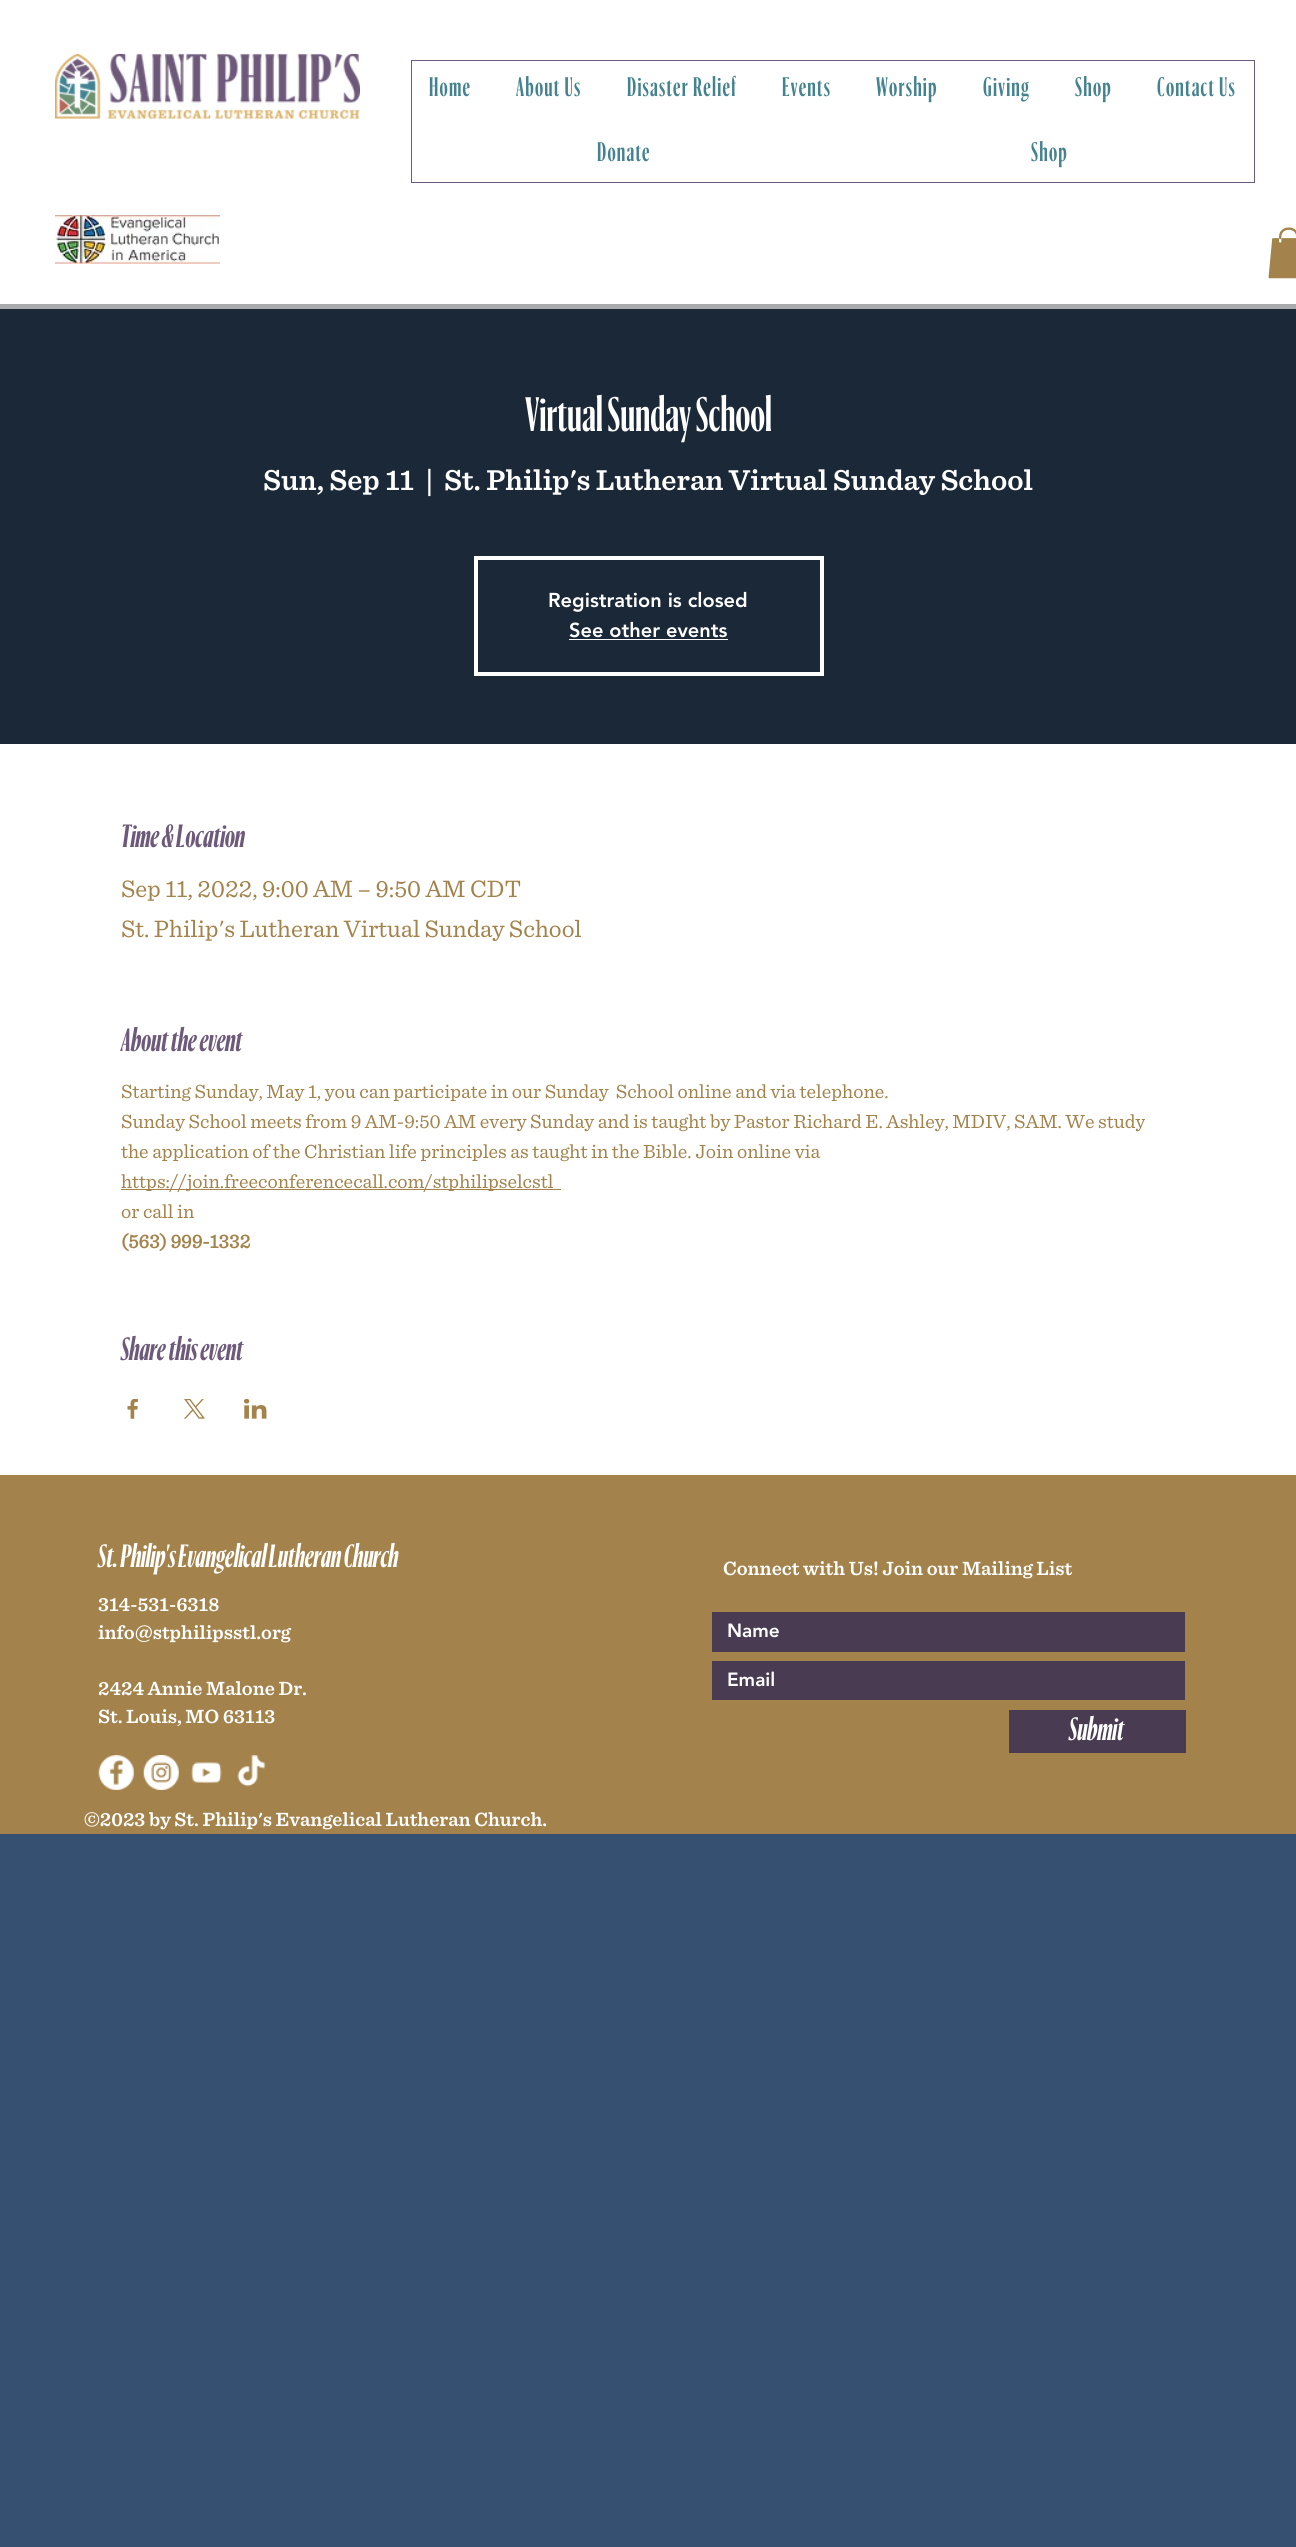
import math
import cairo


def write_spaced(ctx, x, y, s, letter, word):
	ctx.move_to(x, y)
	for ch in s:
		ctx.show_text(ch)
		ctx.rel_move_to(letter + word * (ch == ' '), 0)

def paste(ctx, path, x, y, w, h):
	ctx.save()
	ctx.set_source_surface(cairo.ImageSurface.create_from_png(path), x, y)
	ctx.rectangle(x, y, w, h)
	ctx.fill()
	ctx.restore()

def draw(ctx):
	ctx.set_source_rgb(0.208, 0.314, 0.439)
	ctx.paint()
	ctx.set_source_rgb(0.659, 0.667, 0.671)
	ctx.rectangle(0, 304, 1296, 5)
	ctx.fill()
	ctx.set_source_rgb(1, 1, 1)
	ctx.rectangle(0, 0, 1296, 304)
	ctx.fill()
	paste(ctx, 'media/1.png', 55, 53, 305, 66)
	ctx.rectangle(411.5, 60.5, 843, 122)
	ctx.set_source_rgb(0.427, 0.349, 0.478)
	ctx.set_line_width(1)
	ctx.stroke()
	ctx.select_font_face('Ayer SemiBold')
	ctx.set_font_size(25)
	ctx.set_source_rgb(0.267, 0.51, 0.565)
	for x, y, s in [
		(429, 96, 'Home'),
		(516, 96, 'About Us'),
		(627, 96, 'Disaster Relief'),
		(782, 96, 'Events'),
		(876, 96, 'Worship'),
		(983, 96, 'Giving'),
		(1075, 96, 'Shop'),
		(1157, 96, 'Contact Us'),
		(597, 161, 'Donate'),
		(1031, 161, 'Shop'),
	]:
		write_spaced(ctx, x, y, s, 1.25, 0)
	paste(ctx, 'media/2.png', 55, 215, 165, 49)
	paste(ctx, 'media/3.png', 1268, 227, 28, 52)
	ctx.set_source_rgb(0.102, 0.157, 0.22)
	ctx.rectangle(0, 309, 1296, 435)
	ctx.fill()
	ctx.set_font_size(45)
	ctx.set_source_rgb(1, 1, 1)
	ctx.move_to(525, 431)
	ctx.show_text('Virtual Sunday School')
	ctx.select_font_face('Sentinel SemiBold')
	ctx.set_font_size(30)
	for x, y, s in [
		(263, 490, 'Sun, Sep 11'),
		(425, 490, '|'),
		(444, 490, 'St. Philip\'s Lutheran Virtual Sunday School'),
	]:
		ctx.move_to(x, y)
		ctx.show_text(s)
	ctx.rectangle(476, 558, 346, 116)
	ctx.set_line_width(4)
	ctx.stroke()
	ctx.select_font_face('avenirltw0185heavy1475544 Black')
	ctx.set_font_size(20)
	ctx.move_to(548, 607)
	ctx.show_text('Registration is closed')
	ctx.move_to(569, 637)
	ctx.show_text('See other events')
	ctx.rectangle(569, 639, 159, 1)
	ctx.fill()
	ctx.rectangle(0, 744, 1296, 731)
	ctx.fill()
	ctx.select_font_face('Ayer', cairo.FONT_SLANT_ITALIC, cairo.FONT_WEIGHT_BOLD)
	ctx.set_font_size(30)
	ctx.set_source_rgb(0.427, 0.349, 0.478)
	ctx.move_to(121, 847)
	ctx.show_text('Time & Location')
	ctx.select_font_face('Sentinel')
	ctx.set_font_size(25)
	ctx.set_source_rgb(0.639, 0.51, 0.294)
	ctx.move_to(121, 897)
	ctx.show_text('Sep 11, 2022, 9:00 AM – 9:50 AM CDT')
	ctx.move_to(121, 937)
	ctx.show_text('St. Philip\'s Lutheran Virtual Sunday School')
	ctx.select_font_face('Ayer', cairo.FONT_SLANT_ITALIC, cairo.FONT_WEIGHT_BOLD)
	ctx.set_font_size(30)
	ctx.set_source_rgb(0.427, 0.349, 0.478)
	ctx.move_to(121, 1051)
	ctx.show_text('About the event')
	ctx.select_font_face('Sentinel')
	ctx.set_font_size(20)
	ctx.set_source_rgb(0.639, 0.51, 0.294)
	for x, y, s in [
		(121, 1098, 'Starting Sunday, May 1, you can participate in our Sunday  School online and via telephone.'),
		(121, 1128, 'Sunday School meets from 9 AM-9:50 AM every Sunday and is taught by Pastor Richard E. Ashley, MDIV, SAM. We study'),
		(121, 1158, 'the application of the Christian life principles as taught in the Bible. Join online via'),
	]:
		ctx.move_to(x, y)
		ctx.show_text(s)
	ctx.rectangle(121, 1189, 440, 1)
	ctx.fill()
	ctx.move_to(121, 1188)
	ctx.show_text('https://join.freeconferencecall.com/stphilipselcstl')
	ctx.move_to(121, 1218)
	ctx.show_text('or call in')
	ctx.select_font_face('Sentinel', cairo.FONT_SLANT_NORMAL, cairo.FONT_WEIGHT_BOLD)
	ctx.move_to(121, 1248)
	ctx.show_text('(563) 999-1332')
	ctx.select_font_face('Ayer', cairo.FONT_SLANT_ITALIC, cairo.FONT_WEIGHT_BOLD)
	ctx.set_font_size(30)
	ctx.set_source_rgb(0.427, 0.349, 0.478)
	ctx.move_to(121, 1360)
	ctx.show_text('Share this event')
	paste(ctx, 'media/4.png', 127, 1399, 11, 20)
	paste(ctx, 'media/5.png', 184, 1399, 21, 20)
	paste(ctx, 'media/6.png', 244, 1399, 23, 20)
	ctx.set_source_rgb(0.639, 0.51, 0.294)
	ctx.rectangle(0, 1475, 1296, 359)
	ctx.fill()
	ctx.set_source_rgb(1, 1, 1)
	ctx.move_to(98, 1567)
	ctx.show_text('St. Philip\'s Evangelical Lutheran Church')
	ctx.select_font_face('Sentinel SemiBold')
	ctx.set_font_size(20)
	for x, y, s in [
		(723, 1575, 'Connect with Us! Join our Mailing List'),
		(98, 1611, '314-531-6318'),
		(98, 1639, 'info@stphilipsstl.org'),
		(98, 1695, '2424 Annie Malone Dr.'),
		(98, 1723, 'St. Louis, MO 63113'),
	]:
		ctx.move_to(x, y)
		ctx.show_text(s)
	ctx.set_source_rgb(0.286, 0.231, 0.318)
	ctx.rectangle(712, 1612, 473, 40)
	ctx.fill()
	ctx.select_font_face('avenirltw0185heavy1475544 Black')
	ctx.set_font_size(19)
	ctx.set_source_rgb(1, 1, 1)
	ctx.move_to(727, 1637)
	ctx.show_text('Name')
	ctx.set_source_rgb(0.286, 0.231, 0.318)
	ctx.rectangle(712, 1661, 473, 39)
	ctx.fill()
	ctx.set_source_rgb(1, 1, 1)
	ctx.move_to(727, 1686)
	ctx.show_text('Email')
	ctx.set_source_rgb(0.286, 0.231, 0.318)
	ctx.rectangle(1009, 1710, 177, 43)
	ctx.fill()
	ctx.select_font_face('Ayer', cairo.FONT_SLANT_ITALIC, cairo.FONT_WEIGHT_BOLD)
	ctx.set_font_size(30)
	ctx.set_source_rgb(1, 1, 1)
	ctx.move_to(1069, 1740)
	ctx.show_text('Submit')
	paste(ctx, 'media/7.png', 98, 1755, 36, 35)
	paste(ctx, 'media/8.png', 143, 1755, 36, 35)
	paste(ctx, 'media/9.png', 191, 1762, 31, 22)
	paste(ctx, 'media/10.png', 237, 1755, 29, 32)
	ctx.select_font_face('Sentinel SemiBold')
	ctx.set_font_size(20)
	ctx.move_to(84, 1826)
	ctx.show_text('©2023 by St. Philip\'s Evangelical Lutheran Church.')


surface = cairo.ImageSurface(cairo.FORMAT_RGB24, 1296, 2547)
ctx = cairo.Context(surface)
options = cairo.FontOptions()
options.set_hint_metrics(cairo.HINT_METRICS_OFF)
options.set_hint_style(cairo.HINT_STYLE_NONE)
ctx.set_font_options(options)
ctx.set_miter_limit(4)
draw(ctx)
surface.write_to_png('image.png')
